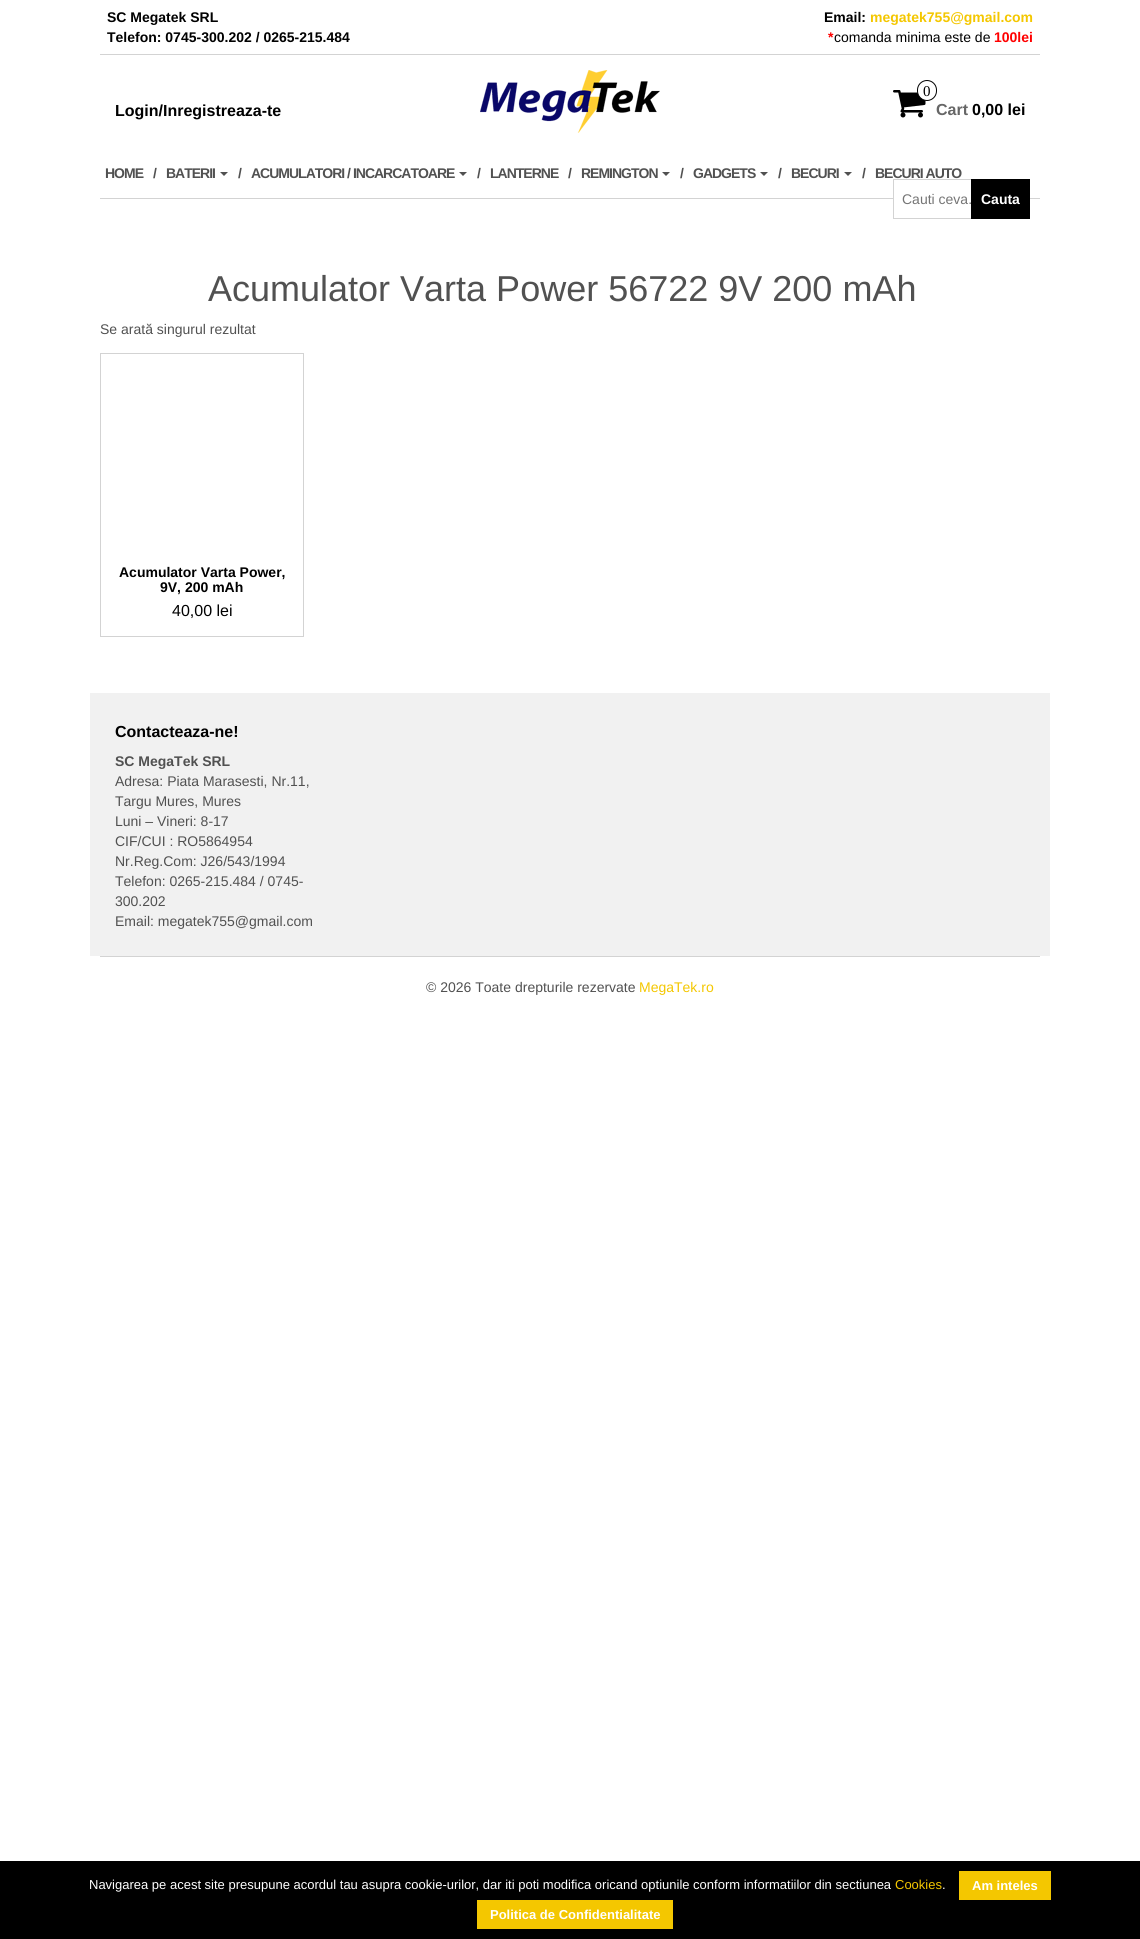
import math
import cairo


def write_spaced(ctx, x, y, s, letter, word):
	ctx.move_to(x, y)
	for ch in s:
		ctx.show_text(ch)
		ctx.rel_move_to(letter + word * (ch == ' '), 0)

def round_path(ctx, x, y, w, h, r):
	ctx.new_sub_path()
	for i, (u, v) in enumerate([(x + w - r, y + h - r), (x + r, y + h - r), (x + r, y + r), (x + w - r, y + r)]):
		ctx.arc(u, v, r, i * math.pi / 2, (i + 1) * math.pi / 2)
	ctx.close_path()

def paste(ctx, path, x, y, w, h):
	ctx.save()
	ctx.set_source_surface(cairo.ImageSurface.create_from_png(path), x, y)
	ctx.rectangle(x, y, w, h)
	ctx.fill()
	ctx.restore()

def draw(ctx):
	ctx.set_source_rgb(1, 1, 1)
	ctx.paint()
	ctx.set_source_rgb(0.827, 0.827, 0.827)
	ctx.rectangle(100, 54, 940, 1)
	ctx.fill()
	ctx.select_font_face('Liberation Sans', cairo.FONT_SLANT_NORMAL, cairo.FONT_WEIGHT_BOLD)
	ctx.set_font_size(14)
	ctx.set_source_rgb(0, 0, 0)
	for x, y, s in [
		(107, 22, 'SC Megatek SRL'),
		(107, 42, 'Telefon: 0745-300.202 / 0265-215.484'),
		(824, 22, 'Email:'),
	]:
		ctx.move_to(x, y)
		ctx.show_text(s)
	ctx.set_source_rgb(0.957, 0.78, 0)
	ctx.move_to(870, 22)
	ctx.show_text('megatek755@gmail.com')
	ctx.set_source_rgb(1, 0, 0)
	ctx.move_to(828, 42)
	ctx.show_text('*')
	ctx.select_font_face('Liberation Sans')
	ctx.set_source_rgb(0, 0, 0)
	ctx.move_to(834, 42)
	ctx.show_text('comanda minima este de')
	ctx.select_font_face('Liberation Sans', cairo.FONT_SLANT_NORMAL, cairo.FONT_WEIGHT_BOLD)
	ctx.set_source_rgb(1, 0, 0)
	ctx.move_to(994, 42)
	ctx.show_text('100lei')
	ctx.set_font_size(16)
	ctx.set_source_rgb(0, 0, 0)
	ctx.move_to(115, 116)
	ctx.show_text('Login/Inregistreaza-te')
	paste(ctx, 'media/1.png', 480, 70, 180, 63)
	paste(ctx, 'media/2.png', 893, 90, 33, 28)
	ctx.set_source_rgb(1, 1, 1)
	round_path(ctx, 917.5, 80.5, 19, 20, 9.5)
	ctx.fill_preserve()
	ctx.set_source_rgb(0, 0, 0)
	ctx.set_line_width(1)
	ctx.stroke()
	ctx.select_font_face('Liberation Serif')
	ctx.set_font_size(15)
	ctx.move_to(923, 96)
	ctx.show_text('0')
	ctx.select_font_face('Liberation Sans', cairo.FONT_SLANT_NORMAL, cairo.FONT_WEIGHT_BOLD)
	ctx.set_font_size(16)
	ctx.set_source_rgb(0.4, 0.4, 0.4)
	ctx.move_to(936, 115)
	ctx.show_text('Cart')
	ctx.set_source_rgb(0, 0, 0)
	ctx.move_to(972, 115)
	ctx.show_text('0,00 lei')
	ctx.set_source_rgb(0.827, 0.827, 0.827)
	ctx.rectangle(100, 198, 940, 1)
	ctx.fill()
	ctx.set_font_size(14)
	ctx.set_source_rgb(0.318, 0.318, 0.318)
	for x, y, s in [
		(105, 178, 'HOME'),
		(153, 178, '/'),
		(166, 178, 'BATERII'),
	]:
		write_spaced(ctx, x, y, s, -1, 0)
	ctx.new_path()
	ctx.move_to(220, 172)
	ctx.line_to(228, 172)
	ctx.line_to(224, 176)
	ctx.close_path()
	ctx.fill()
	write_spaced(ctx, 238, 178, '/', -1, 0)
	write_spaced(ctx, 251, 178, 'ACUMULATORI / INCARCATOARE', -1, 0)
	ctx.new_path()
	ctx.move_to(459, 172)
	ctx.line_to(467, 172)
	ctx.line_to(463, 176)
	ctx.close_path()
	ctx.fill()
	for x, y, s in [
		(477, 178, '/'),
		(490, 178, 'LANTERNE'),
		(568, 178, '/'),
		(581, 178, 'REMINGTON'),
	]:
		write_spaced(ctx, x, y, s, -1, 0)
	ctx.new_path()
	ctx.move_to(662, 172)
	ctx.line_to(670, 172)
	ctx.line_to(666, 176)
	ctx.close_path()
	ctx.fill()
	write_spaced(ctx, 680, 178, '/', -1, 0)
	write_spaced(ctx, 693, 178, 'GADGETS', -1, 0)
	ctx.new_path()
	ctx.move_to(760, 172)
	ctx.line_to(768, 172)
	ctx.line_to(764, 176)
	ctx.close_path()
	ctx.fill()
	write_spaced(ctx, 778, 178, '/', -1, 0)
	write_spaced(ctx, 791, 178, 'BECURI', -1, 0)
	ctx.new_path()
	ctx.move_to(844, 172)
	ctx.line_to(852, 172)
	ctx.line_to(848, 176)
	ctx.close_path()
	ctx.fill()
	write_spaced(ctx, 862, 178, '/', -1, 0)
	write_spaced(ctx, 875, 178, 'BECURI AUTO', -1, 0)
	ctx.set_source_rgb(1, 1, 1)
	ctx.rectangle(894, 198, 77, 1)
	ctx.fill()
	ctx.rectangle(893.5, 179.5, 136, 39)
	ctx.set_source_rgb(0.827, 0.827, 0.827)
	ctx.stroke()
	ctx.select_font_face('Liberation Sans')
	ctx.set_source_rgb(0.459, 0.459, 0.459)
	ctx.move_to(902, 204)
	ctx.show_text('Cauti ceva.')
	ctx.set_source_rgb(0, 0, 0)
	ctx.rectangle(971, 179, 59, 40)
	ctx.fill()
	ctx.select_font_face('Liberation Sans', cairo.FONT_SLANT_NORMAL, cairo.FONT_WEIGHT_BOLD)
	ctx.set_source_rgb(1, 1, 1)
	ctx.move_to(981, 204)
	ctx.show_text('Cauta')
	ctx.select_font_face('Liberation Sans')
	ctx.set_font_size(36)
	ctx.set_source_rgb(0.318, 0.318, 0.318)
	ctx.move_to(208, 301)
	ctx.show_text('Acumulator Varta Power 56722 9V 200 mAh')
	ctx.set_font_size(14)
	ctx.move_to(100, 334)
	ctx.show_text('Se arată singurul rezultat')
	ctx.rectangle(100.5, 353.5, 203, 283)
	ctx.set_source_rgb(0.827, 0.827, 0.827)
	ctx.stroke()
	ctx.select_font_face('Liberation Sans', cairo.FONT_SLANT_NORMAL, cairo.FONT_WEIGHT_BOLD)
	ctx.set_source_rgb(0, 0, 0)
	ctx.move_to(119, 577)
	ctx.show_text('Acumulator Varta Power,')
	ctx.move_to(160, 592)
	ctx.show_text('9V, 200 mAh')
	ctx.select_font_face('Liberation Sans')
	ctx.set_font_size(16)
	ctx.move_to(172, 616)
	ctx.show_text('40,00 lei')
	ctx.set_source_rgb(0.945, 0.945, 0.945)
	ctx.rectangle(90, 693, 960, 263)
	ctx.fill()
	ctx.select_font_face('Liberation Sans', cairo.FONT_SLANT_NORMAL, cairo.FONT_WEIGHT_BOLD)
	ctx.set_source_rgb(0, 0, 0)
	ctx.move_to(115, 737)
	ctx.show_text('Contacteaza-ne!')
	ctx.set_font_size(14)
	ctx.set_source_rgb(0.318, 0.318, 0.318)
	ctx.move_to(115, 766)
	ctx.show_text('SC MegaTek SRL')
	ctx.select_font_face('Liberation Sans')
	for x, y, s in [
		(115, 786, 'Adresa: Piata Marasesti, Nr.11,'),
		(115, 806, 'Targu Mures, Mures'),
		(115, 826, 'Luni – Vineri: 8-17'),
		(115, 846, 'CIF/CUI : RO5864954'),
		(115, 866, 'Nr.Reg.Com: J26/543/1994'),
		(115, 886, 'Telefon: 0265-215.484 / 0745-'),
		(115, 906, '300.202'),
		(115, 926, 'Email: megatek755@gmail.com'),
	]:
		ctx.move_to(x, y)
		ctx.show_text(s)
	ctx.set_source_rgb(0.827, 0.827, 0.827)
	ctx.rectangle(100, 956, 940, 1)
	ctx.fill()
	ctx.set_source_rgb(0.318, 0.318, 0.318)
	ctx.move_to(426, 992)
	ctx.show_text('© 2026 Toate drepturile rezervate')
	ctx.set_source_rgb(0.957, 0.78, 0)
	ctx.move_to(639, 992)
	ctx.show_text('MegaTek.ro')
	ctx.set_source_rgb(0, 0, 0)
	ctx.rectangle(0, 1861, 1140, 78)
	ctx.fill()
	ctx.set_font_size(13)
	ctx.set_source_rgb(1, 1, 1)
	ctx.move_to(89, 1889)
	ctx.show_text('Navigarea pe acest site presupune acordul tau asupra cookie-urilor, dar iti poti modifica oricand optiunile conform informatiilor din sectiunea')
	ctx.set_source_rgb(0.957, 0.78, 0)
	ctx.move_to(895, 1889)
	ctx.show_text('Cookies')
	ctx.set_source_rgb(1, 1, 1)
	ctx.move_to(942, 1889)
	ctx.show_text('.')
	ctx.set_source_rgb(0.957, 0.78, 0)
	ctx.rectangle(959, 1871, 92, 29)
	ctx.fill()
	ctx.select_font_face('Liberation Sans', cairo.FONT_SLANT_NORMAL, cairo.FONT_WEIGHT_BOLD)
	ctx.set_source_rgb(1, 1, 1)
	ctx.move_to(972, 1890)
	ctx.show_text('Am inteles')
	ctx.set_source_rgb(0.957, 0.78, 0)
	ctx.rectangle(477, 1900, 196, 29)
	ctx.fill()
	ctx.set_source_rgb(1, 1, 1)
	ctx.move_to(490, 1919)
	ctx.show_text('Politica de Confidentialitate')


surface = cairo.ImageSurface(cairo.FORMAT_RGB24, 1140, 1939)
ctx = cairo.Context(surface)
options = cairo.FontOptions()
options.set_hint_metrics(cairo.HINT_METRICS_OFF)
options.set_hint_style(cairo.HINT_STYLE_NONE)
ctx.set_font_options(options)
ctx.set_miter_limit(4)
draw(ctx)
surface.write_to_png('image.png')
